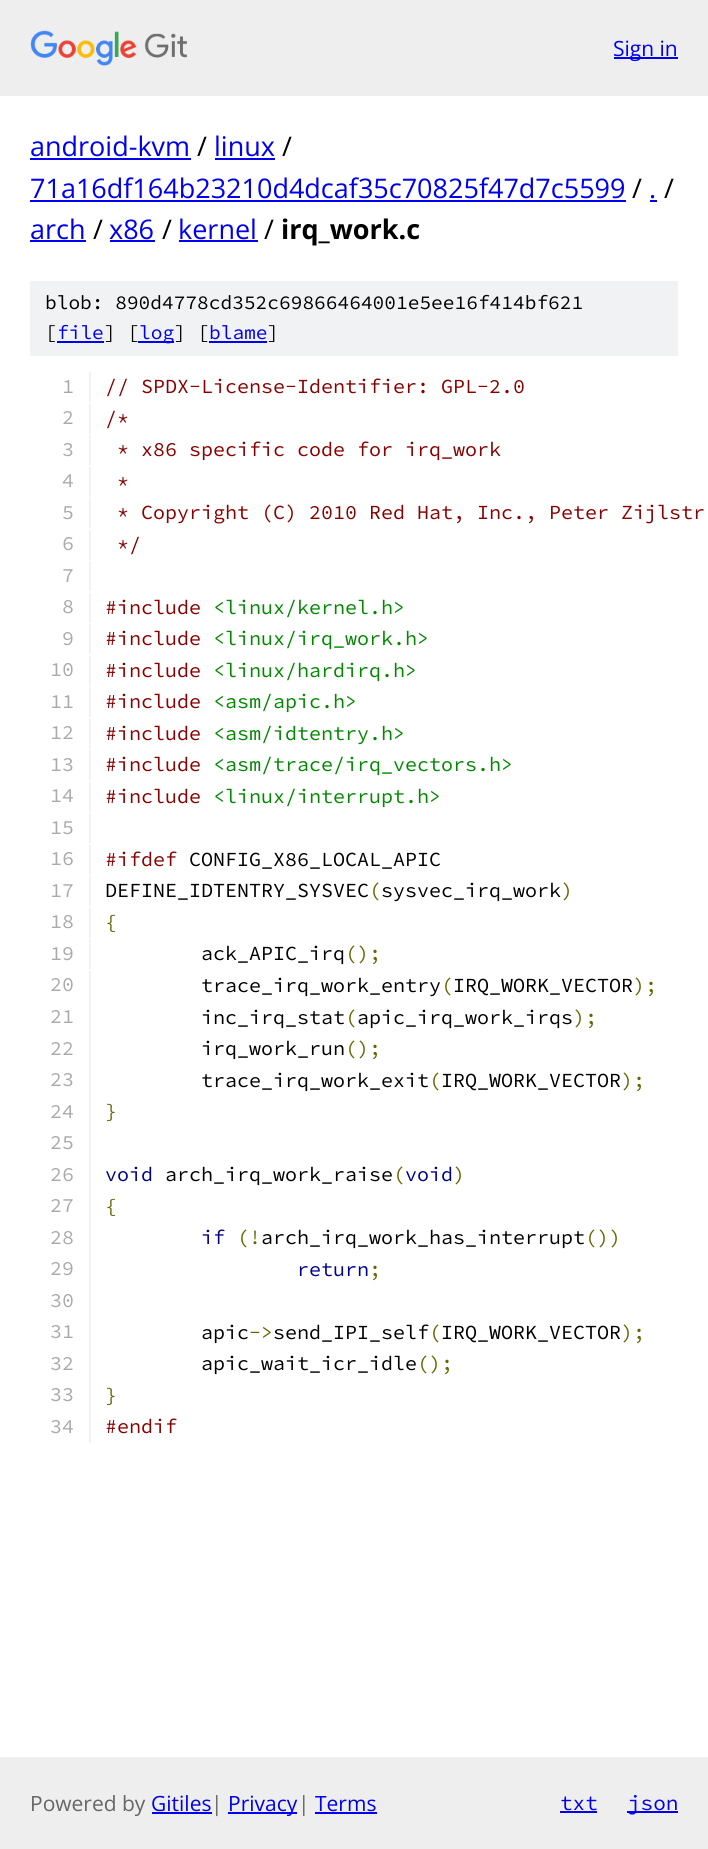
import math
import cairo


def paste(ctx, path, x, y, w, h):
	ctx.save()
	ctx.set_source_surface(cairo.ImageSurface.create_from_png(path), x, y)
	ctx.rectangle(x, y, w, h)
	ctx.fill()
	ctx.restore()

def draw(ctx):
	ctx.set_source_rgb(1, 1, 1)
	ctx.paint()
	ctx.set_source_rgb(0.933, 0.933, 0.933)
	ctx.rectangle(0, 0, 708, 96)
	ctx.fill()
	paste(ctx, 'media/1.png', 30, 30, 157, 36)
	ctx.set_source_rgb(0, 0, 0.933)
	ctx.rectangle(614, 57, 64, 2)
	ctx.fill()
	ctx.select_font_face('Open Sans')
	ctx.set_font_size(21)
	ctx.move_to(613, 56)
	ctx.show_text('Sign in')
	ctx.set_font_size(27)
	ctx.move_to(30, 156)
	ctx.show_text('android-kvm')
	ctx.rectangle(30, 158, 161, 2)
	ctx.fill()
	ctx.set_source_rgb(0, 0, 0)
	ctx.move_to(197, 156)
	ctx.show_text('/')
	ctx.set_source_rgb(0, 0, 0.933)
	ctx.move_to(214, 156)
	ctx.show_text('linux')
	ctx.rectangle(215, 158, 60, 2)
	ctx.fill()
	ctx.set_source_rgb(0, 0, 0)
	ctx.move_to(282, 156)
	ctx.show_text('/')
	ctx.set_source_rgb(0, 0, 0.933)
	ctx.move_to(30, 198)
	ctx.show_text('71a16df164b23210d4dcaf35c70825f47d7c5599')
	ctx.rectangle(30, 200, 596, 2)
	ctx.fill()
	ctx.set_source_rgb(0, 0, 0)
	ctx.move_to(632, 198)
	ctx.show_text('/')
	ctx.set_source_rgb(0, 0, 0.933)
	ctx.move_to(649, 198)
	ctx.show_text('.')
	ctx.rectangle(650, 200, 7, 2)
	ctx.fill()
	ctx.set_source_rgb(0, 0, 0)
	ctx.move_to(664, 198)
	ctx.show_text('/')
	ctx.set_source_rgb(0, 0, 0.933)
	ctx.move_to(30, 239)
	ctx.show_text('arch')
	ctx.rectangle(30, 240, 56, 2)
	ctx.fill()
	ctx.set_source_rgb(0, 0, 0)
	ctx.move_to(93, 239)
	ctx.show_text('/')
	ctx.set_source_rgb(0, 0, 0.933)
	ctx.move_to(109, 239)
	ctx.show_text('x86')
	ctx.rectangle(110, 240, 45, 2)
	ctx.fill()
	ctx.set_source_rgb(0, 0, 0)
	ctx.move_to(162, 239)
	ctx.show_text('/')
	ctx.set_source_rgb(0, 0, 0.933)
	ctx.move_to(178, 239)
	ctx.show_text('kernel')
	ctx.rectangle(179, 240, 79, 2)
	ctx.fill()
	ctx.set_source_rgb(0, 0, 0)
	ctx.move_to(264, 239)
	ctx.show_text('/')
	ctx.select_font_face('Open Sans', cairo.FONT_SLANT_NORMAL, cairo.FONT_WEIGHT_BOLD)
	ctx.move_to(281, 239)
	ctx.show_text('irq_work.c')
	ctx.set_source_rgb(0.945, 0.949, 0.953)
	ctx.rectangle(30, 281, 648, 75)
	ctx.fill()
	ctx.select_font_face('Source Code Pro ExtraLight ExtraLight')
	ctx.set_font_size(19.5)
	ctx.set_source_rgb(0, 0, 0)
	ctx.move_to(45, 309)
	ctx.show_text('blob: 890d4778cd352c69866464001e5ee16f414bf621')
	ctx.move_to(45, 339)
	ctx.show_text('[')
	ctx.set_source_rgb(0, 0, 0.933)
	ctx.move_to(57, 339)
	ctx.show_text('file')
	ctx.rectangle(57, 341, 47, 2)
	ctx.fill()
	ctx.set_source_rgb(0, 0, 0)
	ctx.move_to(104, 339)
	ctx.show_text('] [')
	ctx.set_source_rgb(0, 0, 0.933)
	ctx.rectangle(138, 341, 36, 2)
	ctx.fill()
	ctx.move_to(139, 339)
	ctx.show_text('log')
	ctx.set_source_rgb(0, 0, 0)
	ctx.move_to(174, 339)
	ctx.show_text('] [')
	ctx.set_source_rgb(0, 0, 0.933)
	ctx.move_to(209, 339)
	ctx.show_text('blame')
	ctx.rectangle(209, 341, 58, 2)
	ctx.fill()
	ctx.set_source_rgb(0, 0, 0)
	ctx.move_to(267, 339)
	ctx.show_text(']')
	ctx.set_source_rgb(0.945, 0.949, 0.953)
	ctx.rectangle(89, 372, 2, 30)
	ctx.fill()
	ctx.set_font_size(20)
	ctx.set_source_rgb(0.667, 0.667, 0.667)
	ctx.move_to(62, 393)
	ctx.show_text('1')
	ctx.set_source_rgb(0.533, 0, 0)
	ctx.move_to(105, 393)
	ctx.show_text('// SPDX-License-Identifier: GPL-2.0')
	ctx.set_source_rgb(0.945, 0.949, 0.953)
	ctx.rectangle(89, 404, 2, 30)
	ctx.fill()
	ctx.set_source_rgb(0.667, 0.667, 0.667)
	ctx.move_to(62, 424)
	ctx.show_text('2')
	ctx.set_source_rgb(0.533, 0, 0)
	ctx.move_to(105, 425)
	ctx.show_text('/*')
	ctx.set_source_rgb(0.945, 0.949, 0.953)
	ctx.rectangle(89, 435, 2, 30)
	ctx.fill()
	ctx.set_source_rgb(0.667, 0.667, 0.667)
	ctx.move_to(62, 456)
	ctx.show_text('3')
	ctx.set_source_rgb(0.533, 0, 0)
	ctx.move_to(117, 456)
	ctx.show_text('* x86 specific code for irq_work')
	ctx.set_source_rgb(0.945, 0.949, 0.953)
	ctx.rectangle(89, 467, 2, 30)
	ctx.fill()
	ctx.set_source_rgb(0.667, 0.667, 0.667)
	ctx.move_to(62, 487)
	ctx.show_text('4')
	ctx.set_source_rgb(0.533, 0, 0)
	ctx.move_to(117, 488)
	ctx.show_text('*')
	ctx.set_source_rgb(0.945, 0.949, 0.953)
	ctx.rectangle(89, 498, 2, 30)
	ctx.fill()
	ctx.set_source_rgb(0.667, 0.667, 0.667)
	ctx.move_to(62, 519)
	ctx.show_text('5')
	ctx.set_source_rgb(0.533, 0, 0)
	ctx.move_to(117, 519)
	ctx.show_text('* Copyright (C) 2010 Red Hat, Inc., Peter Zijlstr')
	ctx.set_source_rgb(0.945, 0.949, 0.953)
	ctx.rectangle(89, 530, 2, 30)
	ctx.fill()
	ctx.set_source_rgb(0.667, 0.667, 0.667)
	ctx.move_to(62, 550)
	ctx.show_text('6')
	ctx.set_source_rgb(0.533, 0, 0)
	ctx.move_to(117, 551)
	ctx.show_text('*/')
	ctx.set_source_rgb(0.945, 0.949, 0.953)
	ctx.rectangle(89, 561, 2, 30)
	ctx.fill()
	ctx.set_source_rgb(0.667, 0.667, 0.667)
	ctx.move_to(62, 582)
	ctx.show_text('7')
	ctx.set_source_rgb(0.945, 0.949, 0.953)
	ctx.rectangle(89, 593, 2, 30)
	ctx.fill()
	ctx.set_source_rgb(0.667, 0.667, 0.667)
	ctx.move_to(62, 613)
	ctx.show_text('8')
	ctx.set_source_rgb(0.533, 0, 0)
	ctx.move_to(105, 614)
	ctx.show_text('#include')
	ctx.set_source_rgb(0, 0.533, 0)
	ctx.move_to(213, 614)
	ctx.show_text('<linux/kernel.h>')
	ctx.set_source_rgb(0.945, 0.949, 0.953)
	ctx.rectangle(89, 624, 2, 30)
	ctx.fill()
	ctx.set_source_rgb(0.667, 0.667, 0.667)
	ctx.move_to(62, 645)
	ctx.show_text('9')
	ctx.set_source_rgb(0.533, 0, 0)
	ctx.move_to(105, 645)
	ctx.show_text('#include')
	ctx.set_source_rgb(0, 0.533, 0)
	ctx.move_to(213, 645)
	ctx.show_text('<linux/irq_work.h>')
	ctx.set_source_rgb(0.945, 0.949, 0.953)
	ctx.rectangle(89, 656, 2, 30)
	ctx.fill()
	ctx.set_source_rgb(0.667, 0.667, 0.667)
	ctx.move_to(50, 676)
	ctx.show_text('10')
	ctx.set_source_rgb(0.533, 0, 0)
	ctx.move_to(105, 677)
	ctx.show_text('#include')
	ctx.set_source_rgb(0, 0.533, 0)
	ctx.move_to(213, 677)
	ctx.show_text('<linux/hardirq.h>')
	ctx.set_source_rgb(0.945, 0.949, 0.953)
	ctx.rectangle(89, 687, 2, 30)
	ctx.fill()
	ctx.set_source_rgb(0.667, 0.667, 0.667)
	ctx.move_to(50, 708)
	ctx.show_text('11')
	ctx.set_source_rgb(0.533, 0, 0)
	ctx.move_to(105, 708)
	ctx.show_text('#include')
	ctx.set_source_rgb(0, 0.533, 0)
	ctx.move_to(213, 708)
	ctx.show_text('<asm/apic.h>')
	ctx.set_source_rgb(0.945, 0.949, 0.953)
	ctx.rectangle(89, 719, 2, 30)
	ctx.fill()
	ctx.set_source_rgb(0.667, 0.667, 0.667)
	ctx.move_to(50, 739)
	ctx.show_text('12')
	ctx.set_source_rgb(0.533, 0, 0)
	ctx.move_to(105, 740)
	ctx.show_text('#include')
	ctx.set_source_rgb(0, 0.533, 0)
	ctx.move_to(213, 740)
	ctx.show_text('<asm/idtentry.h>')
	ctx.set_source_rgb(0.945, 0.949, 0.953)
	ctx.rectangle(89, 750, 2, 30)
	ctx.fill()
	ctx.set_source_rgb(0.667, 0.667, 0.667)
	ctx.move_to(50, 771)
	ctx.show_text('13')
	ctx.set_source_rgb(0.533, 0, 0)
	ctx.move_to(105, 771)
	ctx.show_text('#include')
	ctx.set_source_rgb(0, 0.533, 0)
	ctx.move_to(213, 771)
	ctx.show_text('<asm/trace/irq_vectors.h>')
	ctx.set_source_rgb(0.945, 0.949, 0.953)
	ctx.rectangle(89, 782, 2, 30)
	ctx.fill()
	ctx.set_source_rgb(0.667, 0.667, 0.667)
	ctx.move_to(50, 802)
	ctx.show_text('14')
	ctx.set_source_rgb(0.533, 0, 0)
	ctx.move_to(105, 803)
	ctx.show_text('#include')
	ctx.set_source_rgb(0, 0.533, 0)
	ctx.move_to(213, 803)
	ctx.show_text('<linux/interrupt.h>')
	ctx.set_source_rgb(0.945, 0.949, 0.953)
	ctx.rectangle(89, 813, 2, 30)
	ctx.fill()
	ctx.set_source_rgb(0.667, 0.667, 0.667)
	ctx.move_to(50, 834)
	ctx.show_text('15')
	ctx.set_source_rgb(0.945, 0.949, 0.953)
	ctx.rectangle(89, 845, 2, 30)
	ctx.fill()
	ctx.set_source_rgb(0.667, 0.667, 0.667)
	ctx.move_to(50, 865)
	ctx.show_text('16')
	ctx.set_source_rgb(0.533, 0, 0)
	ctx.move_to(105, 866)
	ctx.show_text('#ifdef')
	ctx.set_source_rgb(0, 0, 0)
	ctx.move_to(189, 866)
	ctx.show_text('CONFIG_X86_LOCAL_APIC')
	ctx.set_source_rgb(0.945, 0.949, 0.953)
	ctx.rectangle(89, 876, 2, 30)
	ctx.fill()
	ctx.set_source_rgb(0.667, 0.667, 0.667)
	ctx.move_to(50, 897)
	ctx.show_text('17')
	ctx.set_source_rgb(0, 0, 0)
	ctx.move_to(105, 897)
	ctx.show_text('DEFINE_IDTENTRY_SYSVEC sysvec_irq_work')
	ctx.set_source_rgb(0.4, 0.4, 0)
	ctx.move_to(369, 897)
	ctx.show_text('(')
	ctx.move_to(561, 897)
	ctx.show_text(')')
	ctx.set_source_rgb(0.945, 0.949, 0.953)
	ctx.rectangle(89, 908, 2, 30)
	ctx.fill()
	ctx.set_source_rgb(0.667, 0.667, 0.667)
	ctx.move_to(50, 928)
	ctx.show_text('18')
	ctx.set_source_rgb(0.4, 0.4, 0)
	ctx.move_to(105, 929)
	ctx.show_text('{')
	ctx.set_source_rgb(0.945, 0.949, 0.953)
	ctx.rectangle(89, 939, 2, 30)
	ctx.fill()
	ctx.set_source_rgb(0.667, 0.667, 0.667)
	ctx.move_to(50, 960)
	ctx.show_text('19')
	ctx.set_source_rgb(0, 0, 0)
	ctx.move_to(201, 960)
	ctx.show_text('ack_APIC_irq')
	ctx.set_source_rgb(0.4, 0.4, 0)
	ctx.move_to(345, 960)
	ctx.show_text('();')
	ctx.set_source_rgb(0.945, 0.949, 0.953)
	ctx.rectangle(89, 971, 2, 472)
	ctx.fill()
	ctx.set_source_rgb(0.667, 0.667, 0.667)
	ctx.move_to(50, 991)
	ctx.show_text('20')
	ctx.set_source_rgb(0, 0, 0)
	ctx.move_to(201, 992)
	ctx.show_text('trace_irq_work_entry IRQ_WORK_VECTOR')
	ctx.set_source_rgb(0.4, 0.4, 0)
	ctx.move_to(441, 992)
	ctx.show_text('(')
	ctx.move_to(633, 992)
	ctx.show_text(');')
	ctx.set_source_rgb(0.667, 0.667, 0.667)
	ctx.move_to(50, 1023)
	ctx.show_text('21')
	ctx.set_source_rgb(0, 0, 0)
	ctx.move_to(201, 1024)
	ctx.show_text('inc_irq_stat apic_irq_work_irqs')
	ctx.set_source_rgb(0.4, 0.4, 0)
	ctx.move_to(345, 1024)
	ctx.show_text('(')
	ctx.move_to(573, 1024)
	ctx.show_text(');')
	ctx.set_source_rgb(0.667, 0.667, 0.667)
	ctx.move_to(50, 1055)
	ctx.show_text('22')
	ctx.set_source_rgb(0, 0, 0)
	ctx.move_to(201, 1055)
	ctx.show_text('irq_work_run')
	ctx.set_source_rgb(0.4, 0.4, 0)
	ctx.move_to(345, 1055)
	ctx.show_text('();')
	ctx.set_source_rgb(0.667, 0.667, 0.667)
	ctx.move_to(50, 1086)
	ctx.show_text('23')
	ctx.set_source_rgb(0, 0, 0)
	ctx.move_to(201, 1087)
	ctx.show_text('trace_irq_work_exit IRQ_WORK_VECTOR')
	ctx.set_source_rgb(0.4, 0.4, 0)
	ctx.move_to(429, 1087)
	ctx.show_text('(')
	ctx.move_to(621, 1087)
	ctx.show_text(');')
	ctx.set_source_rgb(0.667, 0.667, 0.667)
	ctx.move_to(50, 1118)
	ctx.show_text('24')
	ctx.set_source_rgb(0.4, 0.4, 0)
	ctx.move_to(105, 1118)
	ctx.show_text('}')
	ctx.set_source_rgb(0.667, 0.667, 0.667)
	ctx.move_to(50, 1149)
	ctx.show_text('25')
	ctx.move_to(50, 1181)
	ctx.show_text('26')
	ctx.set_source_rgb(0, 0, 0.533)
	ctx.move_to(105, 1181)
	ctx.show_text('void')
	ctx.set_source_rgb(0, 0, 0)
	ctx.move_to(165, 1181)
	ctx.show_text('arch_irq_work_raise')
	ctx.set_source_rgb(0.4, 0.4, 0)
	ctx.move_to(393, 1181)
	ctx.show_text('(')
	ctx.set_source_rgb(0, 0, 0.533)
	ctx.move_to(405, 1181)
	ctx.show_text('void')
	ctx.set_source_rgb(0.4, 0.4, 0)
	ctx.move_to(453, 1181)
	ctx.show_text(')')
	ctx.set_source_rgb(0.667, 0.667, 0.667)
	ctx.move_to(50, 1212)
	ctx.show_text('27')
	ctx.set_source_rgb(0.4, 0.4, 0)
	ctx.move_to(105, 1213)
	ctx.show_text('{')
	ctx.set_source_rgb(0.667, 0.667, 0.667)
	ctx.move_to(50, 1244)
	ctx.show_text('28')
	ctx.set_source_rgb(0, 0, 0.533)
	ctx.move_to(201, 1244)
	ctx.show_text('if')
	ctx.set_source_rgb(0.4, 0.4, 0)
	ctx.move_to(237, 1244)
	ctx.show_text('(!')
	ctx.set_source_rgb(0, 0, 0)
	ctx.move_to(261, 1244)
	ctx.show_text('arch_irq_work_has_interrupt')
	ctx.set_source_rgb(0.4, 0.4, 0)
	ctx.move_to(585, 1244)
	ctx.show_text('())')
	ctx.set_source_rgb(0.667, 0.667, 0.667)
	ctx.move_to(50, 1275)
	ctx.show_text('29')
	ctx.set_source_rgb(0, 0, 0.533)
	ctx.move_to(297, 1276)
	ctx.show_text('return')
	ctx.set_source_rgb(0.4, 0.4, 0)
	ctx.move_to(369, 1276)
	ctx.show_text(';')
	ctx.set_source_rgb(0.667, 0.667, 0.667)
	ctx.move_to(50, 1307)
	ctx.show_text('30')
	ctx.move_to(50, 1338)
	ctx.show_text('31')
	ctx.set_source_rgb(0, 0, 0)
	ctx.move_to(201, 1339)
	ctx.show_text('apic')
	ctx.move_to(273, 1339)
	ctx.show_text('send_IPI_self IRQ_WORK_VECTOR')
	ctx.set_source_rgb(0.4, 0.4, 0)
	for x, y, s in [
		(249, 1339, '->'),
		(429, 1339, '('),
		(621, 1339, ');'),
	]:
		ctx.move_to(x, y)
		ctx.show_text(s)
	ctx.set_source_rgb(0.667, 0.667, 0.667)
	ctx.move_to(50, 1370)
	ctx.show_text('32')
	ctx.set_source_rgb(0, 0, 0)
	ctx.move_to(201, 1370)
	ctx.show_text('apic_wait_icr_idle')
	ctx.set_source_rgb(0.4, 0.4, 0)
	ctx.move_to(417, 1370)
	ctx.show_text('();')
	ctx.set_source_rgb(0.667, 0.667, 0.667)
	ctx.move_to(50, 1401)
	ctx.show_text('33')
	ctx.set_source_rgb(0.4, 0.4, 0)
	ctx.move_to(105, 1402)
	ctx.show_text('}')
	ctx.set_source_rgb(0.667, 0.667, 0.667)
	ctx.move_to(50, 1433)
	ctx.show_text('34')
	ctx.set_source_rgb(0.533, 0, 0)
	ctx.move_to(105, 1433)
	ctx.show_text('#endif')
	ctx.set_source_rgb(0.933, 0.933, 0.933)
	ctx.rectangle(0, 1757, 708, 92)
	ctx.fill()
	ctx.select_font_face('Open Sans')
	ctx.set_font_size(21)
	ctx.set_source_rgb(0.4, 0.4, 0.4)
	ctx.move_to(30, 1811)
	ctx.show_text('Powered by')
	ctx.set_source_rgb(0, 0, 0.933)
	ctx.move_to(151, 1811)
	ctx.show_text('Gitiles')
	ctx.rectangle(152, 1812, 60, 2)
	ctx.fill()
	ctx.set_source_rgb(0.4, 0.4, 0.4)
	ctx.move_to(211, 1811)
	ctx.show_text('|')
	ctx.set_source_rgb(0, 0, 0.933)
	ctx.rectangle(228, 1812, 69, 2)
	ctx.fill()
	ctx.move_to(228, 1811)
	ctx.show_text('Privacy')
	ctx.set_source_rgb(0.4, 0.4, 0.4)
	ctx.move_to(298, 1811)
	ctx.show_text('|')
	ctx.set_source_rgb(0, 0, 0.933)
	ctx.move_to(315, 1811)
	ctx.show_text('Terms')
	ctx.rectangle(315, 1812, 62, 2)
	ctx.fill()
	ctx.select_font_face('Source Code Pro ExtraLight ExtraLight')
	ctx.move_to(560, 1810)
	ctx.show_text('txt')
	ctx.rectangle(560, 1811, 37, 2)
	ctx.fill()
	ctx.rectangle(627, 1811, 51, 2)
	ctx.fill()
	ctx.move_to(628, 1810)
	ctx.show_text('json')


surface = cairo.ImageSurface(cairo.FORMAT_RGB24, 708, 1849)
ctx = cairo.Context(surface)
options = cairo.FontOptions()
options.set_hint_metrics(cairo.HINT_METRICS_OFF)
options.set_hint_style(cairo.HINT_STYLE_NONE)
ctx.set_font_options(options)
ctx.set_miter_limit(4)
draw(ctx)
surface.write_to_png('image.png')
